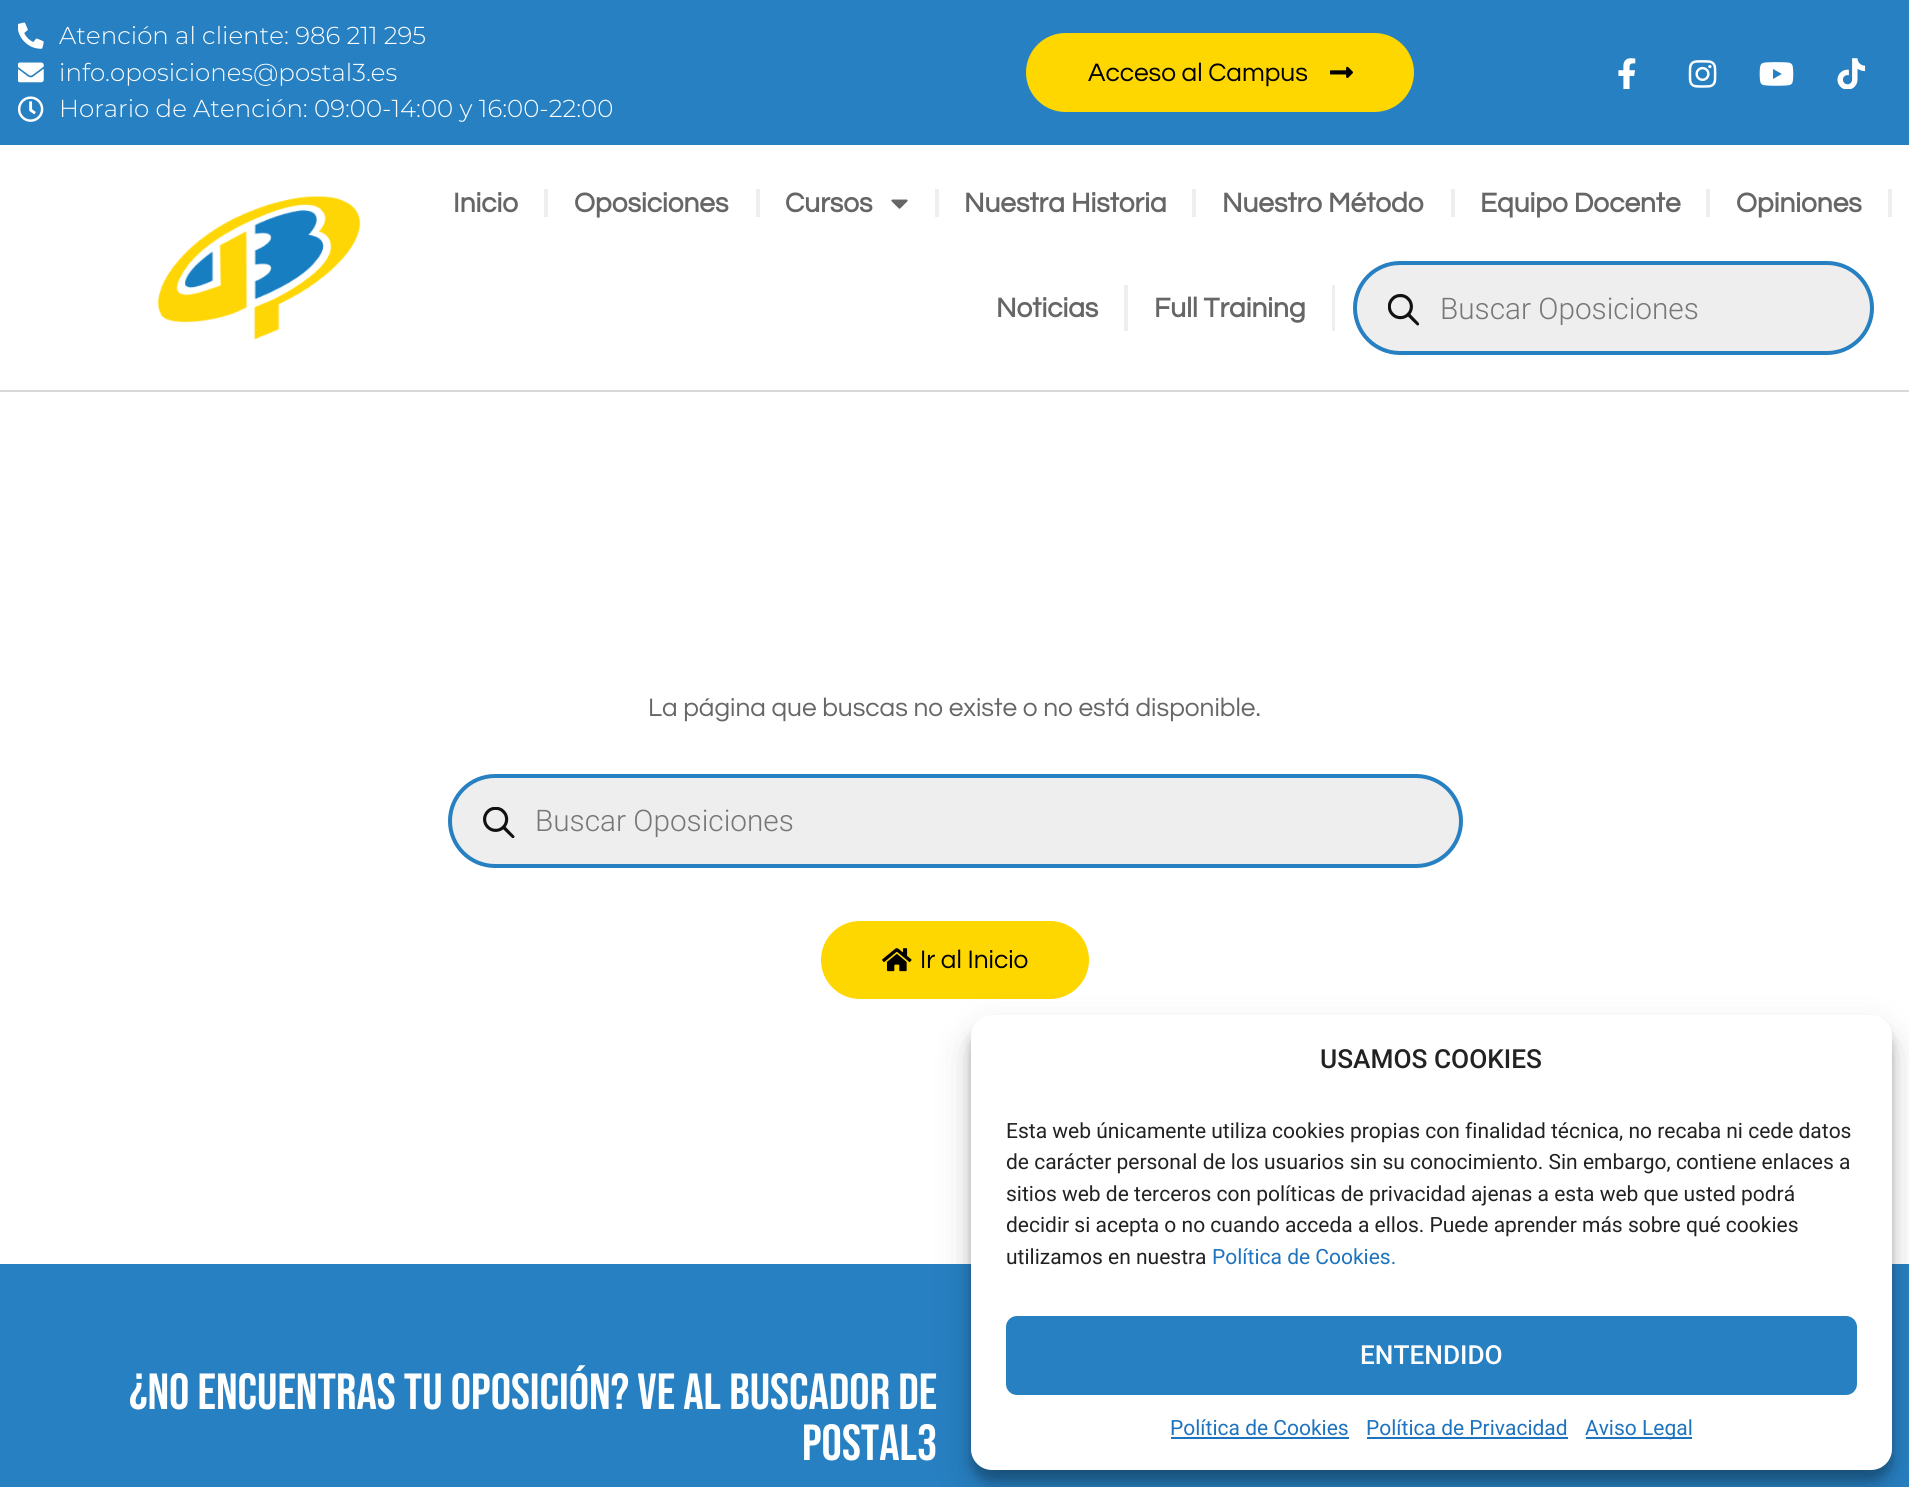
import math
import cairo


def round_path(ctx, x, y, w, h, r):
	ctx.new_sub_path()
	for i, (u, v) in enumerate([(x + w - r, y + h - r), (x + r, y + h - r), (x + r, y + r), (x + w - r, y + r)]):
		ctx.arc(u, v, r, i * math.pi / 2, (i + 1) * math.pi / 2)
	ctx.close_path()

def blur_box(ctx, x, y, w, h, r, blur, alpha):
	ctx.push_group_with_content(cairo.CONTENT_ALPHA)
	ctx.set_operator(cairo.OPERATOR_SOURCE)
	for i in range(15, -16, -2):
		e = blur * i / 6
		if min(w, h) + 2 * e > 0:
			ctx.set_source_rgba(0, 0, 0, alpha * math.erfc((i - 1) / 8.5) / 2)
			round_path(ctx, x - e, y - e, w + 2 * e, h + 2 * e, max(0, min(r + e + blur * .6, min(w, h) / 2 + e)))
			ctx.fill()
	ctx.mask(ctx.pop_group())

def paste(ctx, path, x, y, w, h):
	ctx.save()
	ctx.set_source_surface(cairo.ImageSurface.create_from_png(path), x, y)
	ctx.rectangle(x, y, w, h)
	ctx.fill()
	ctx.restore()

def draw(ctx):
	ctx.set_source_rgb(1, 1, 1)
	ctx.paint()
	ctx.set_source_rgb(0.847, 0.847, 0.847)
	ctx.rectangle(0, 390, 1909, 2)
	ctx.fill()
	ctx.set_source_rgb(0.153, 0.502, 0.761)
	ctx.rectangle(0, 0, 1909, 145)
	ctx.fill()
	paste(ctx, 'media/1.png', 18, 22, 26, 27)
	ctx.select_font_face('Montserrat Light')
	ctx.set_font_size(24.5)
	ctx.set_source_rgb(1, 1, 1)
	ctx.move_to(59, 44)
	ctx.show_text('Atención al cliente: 986 211 295')
	paste(ctx, 'media/2.png', 18, 62, 26, 21)
	ctx.move_to(59, 81)
	ctx.show_text('info.oposiciones@postal3.es')
	paste(ctx, 'media/3.png', 18, 96, 26, 26)
	ctx.move_to(59, 117)
	ctx.show_text('Horario de Atención: 09:00-14:00 y 16:00-22:00')
	ctx.set_source_rgb(0.996, 0.839, 0)
	round_path(ctx, 1026, 33, 388, 79, 39.5)
	ctx.fill()
	ctx.select_font_face('Questrial')
	ctx.set_font_size(26.25)
	ctx.set_source_rgb(0, 0, 0)
	ctx.move_to(1088, 81)
	ctx.show_text('Acceso al Campus')
	paste(ctx, 'media/4.png', 1330, 66, 23, 12)
	paste(ctx, 'media/5.png', 1618, 58, 18, 31)
	paste(ctx, 'media/6.png', 1688, 60, 29, 28)
	paste(ctx, 'media/7.png', 1759, 62, 35, 24)
	paste(ctx, 'media/8.png', 1837, 58, 29, 31)
	paste(ctx, 'media/9.png', 158, 196, 203, 144)
	ctx.select_font_face('Questrial', cairo.FONT_SLANT_NORMAL, cairo.FONT_WEIGHT_BOLD)
	ctx.set_font_size(28)
	ctx.set_source_rgb(0.4, 0.4, 0.4)
	ctx.move_to(453, 212)
	ctx.show_text('Inicio')
	ctx.set_source_rgb(0.933, 0.933, 0.933)
	ctx.rectangle(544, 189, 4, 28)
	ctx.fill()
	ctx.set_source_rgb(0.4, 0.4, 0.4)
	ctx.move_to(574, 212)
	ctx.show_text('Oposiciones')
	ctx.set_source_rgb(0.933, 0.933, 0.933)
	ctx.rectangle(756, 189, 4, 28)
	ctx.fill()
	ctx.set_source_rgb(0.4, 0.4, 0.4)
	ctx.move_to(785, 212)
	ctx.show_text('Cursos')
	paste(ctx, 'media/10.png', 891, 199, 17, 10)
	ctx.set_source_rgb(0.933, 0.933, 0.933)
	ctx.rectangle(935, 189, 4, 28)
	ctx.fill()
	ctx.set_source_rgb(0.4, 0.4, 0.4)
	ctx.move_to(964, 212)
	ctx.show_text('Nuestra Historia')
	ctx.set_source_rgb(0.933, 0.933, 0.933)
	ctx.rectangle(1192, 189, 4, 28)
	ctx.fill()
	ctx.set_source_rgb(0.4, 0.4, 0.4)
	ctx.move_to(1222, 212)
	ctx.show_text('Nuestro Método')
	ctx.set_source_rgb(0.933, 0.933, 0.933)
	ctx.rectangle(1451, 189, 4, 28)
	ctx.fill()
	ctx.set_source_rgb(0.4, 0.4, 0.4)
	ctx.move_to(1480, 212)
	ctx.show_text('Equipo Docente')
	ctx.set_source_rgb(0.933, 0.933, 0.933)
	ctx.rectangle(1706, 189, 4, 28)
	ctx.fill()
	ctx.set_source_rgb(0.4, 0.4, 0.4)
	ctx.move_to(1736, 212)
	ctx.show_text('Opiniones')
	ctx.set_source_rgb(0.933, 0.933, 0.933)
	ctx.rectangle(1888, 189, 4, 28)
	ctx.fill()
	ctx.set_source_rgb(0.4, 0.4, 0.4)
	ctx.move_to(996, 317)
	ctx.show_text('Noticias')
	ctx.set_source_rgb(0.933, 0.933, 0.933)
	ctx.rectangle(1124, 285, 4, 46)
	ctx.fill()
	ctx.set_source_rgb(0.4, 0.4, 0.4)
	ctx.move_to(1154, 317)
	ctx.show_text('Full Training')
	ctx.set_source_rgb(0.933, 0.933, 0.933)
	ctx.rectangle(1332, 285, 3, 46)
	ctx.fill()
	round_path(ctx, 1355, 263, 517, 90, 45)
	ctx.fill_preserve()
	ctx.set_source_rgb(0.153, 0.502, 0.761)
	ctx.set_line_width(4)
	ctx.stroke()
	paste(ctx, 'media/11.png', 1388, 294, 31, 32)
	ctx.select_font_face('Roboto Light')
	ctx.set_font_size(29.75)
	ctx.set_source_rgb(0.467, 0.467, 0.467)
	ctx.move_to(1440, 319)
	ctx.show_text('Buscar Oposiciones')
	ctx.select_font_face('Questrial')
	ctx.set_font_size(26.25)
	ctx.set_source_rgb(0.4, 0.4, 0.4)
	ctx.move_to(648, 716)
	ctx.show_text('La página que buscas no existe o no está disponible.')
	ctx.set_source_rgb(0.933, 0.933, 0.933)
	round_path(ctx, 450, 776, 1011, 90, 45)
	ctx.fill_preserve()
	ctx.set_source_rgb(0.153, 0.502, 0.761)
	ctx.stroke()
	paste(ctx, 'media/12.png', 483, 807, 32, 31)
	ctx.select_font_face('Roboto Light')
	ctx.set_font_size(29.75)
	ctx.set_source_rgb(0.467, 0.467, 0.467)
	ctx.move_to(535, 831)
	ctx.show_text('Buscar Oposiciones')
	ctx.set_source_rgb(0.996, 0.839, 0)
	round_path(ctx, 821, 921, 268, 78, 39)
	ctx.fill()
	paste(ctx, 'media/13.png', 882, 948, 30, 24)
	ctx.select_font_face('Questrial')
	ctx.set_font_size(26.25)
	ctx.set_source_rgb(0, 0, 0)
	ctx.move_to(920, 968)
	ctx.show_text('Ir al Inicio')
	ctx.set_source_rgb(0.153, 0.502, 0.761)
	ctx.rectangle(0, 1264, 1909, 223)
	ctx.fill()
	ctx.select_font_face('Bebas Neue')
	ctx.set_font_size(50.75)
	ctx.set_source_rgb(1, 1, 1)
	ctx.move_to(129, 1409)
	ctx.show_text('¿NO ENCUENTRAS TU OPOSICIÓN? VE AL BUSCADOR DE')
	ctx.move_to(802, 1460)
	ctx.show_text('POSTAL3')
	ctx.set_source_rgb(0, 0, 0)
	blur_box(ctx, 971, 1026, 921, 455, 21, 5, 0.23)
	blur_box(ctx, 971, 1033, 921, 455, 21, 17.5, 0.19)
	ctx.set_source_rgb(1, 1, 1)
	round_path(ctx, 971, 1015, 921, 455, 21)
	ctx.fill()
	ctx.select_font_face('Roboto Medium')
	ctx.set_font_size(26.25)
	ctx.set_source_rgb(0.133, 0.133, 0.133)
	ctx.move_to(1320, 1068)
	ctx.show_text('USAMOS COOKIES')
	ctx.select_font_face('Roboto')
	ctx.set_font_size(21)
	for x, y, s in [
		(1006, 1138, 'Esta web únicamente utiliza cookies propias con finalidad técnica, no recaba ni cede datos'),
		(1006, 1169, 'de carácter personal de los usuarios sin su conocimiento. Sin embargo, contiene enlaces a'),
		(1006, 1201, 'sitios web de terceros con políticas de privacidad ajenas a esta web que usted podrá'),
		(1006, 1232, 'decidir si acepta o no cuando acceda a ellos. Puede aprender más sobre qué cookies'),
		(1006, 1264, 'utilizamos en nuestra'),
	]:
		ctx.move_to(x, y)
		ctx.show_text(s)
	ctx.set_source_rgb(0.118, 0.451, 0.745)
	ctx.move_to(1212, 1264)
	ctx.show_text('Política de Cookies.')
	ctx.set_source_rgb(0.153, 0.502, 0.761)
	round_path(ctx, 1007, 1317, 849, 77, 10)
	ctx.fill_preserve()
	ctx.set_line_width(2)
	ctx.stroke()
	ctx.select_font_face('Roboto Medium')
	ctx.set_font_size(26.25)
	ctx.set_source_rgb(1, 1, 1)
	ctx.move_to(1360, 1364)
	ctx.show_text('ENTENDIDO')
	ctx.select_font_face('Roboto')
	ctx.set_font_size(21)
	ctx.set_source_rgb(0.118, 0.451, 0.745)
	ctx.move_to(1170, 1435)
	ctx.show_text('Política de Cookies')
	ctx.rectangle(1171, 1437, 178, 2)
	ctx.fill()
	ctx.move_to(1366, 1435)
	ctx.show_text('Política de Privacidad')
	ctx.rectangle(1367, 1437, 201, 2)
	ctx.fill()
	ctx.rectangle(1586, 1437, 106, 2)
	ctx.fill()
	ctx.move_to(1585, 1435)
	ctx.show_text('Aviso Legal')


surface = cairo.ImageSurface(cairo.FORMAT_RGB24, 1909, 1487)
ctx = cairo.Context(surface)
options = cairo.FontOptions()
options.set_hint_metrics(cairo.HINT_METRICS_OFF)
options.set_hint_style(cairo.HINT_STYLE_NONE)
ctx.set_font_options(options)
ctx.set_miter_limit(4)
draw(ctx)
surface.write_to_png('image.png')
